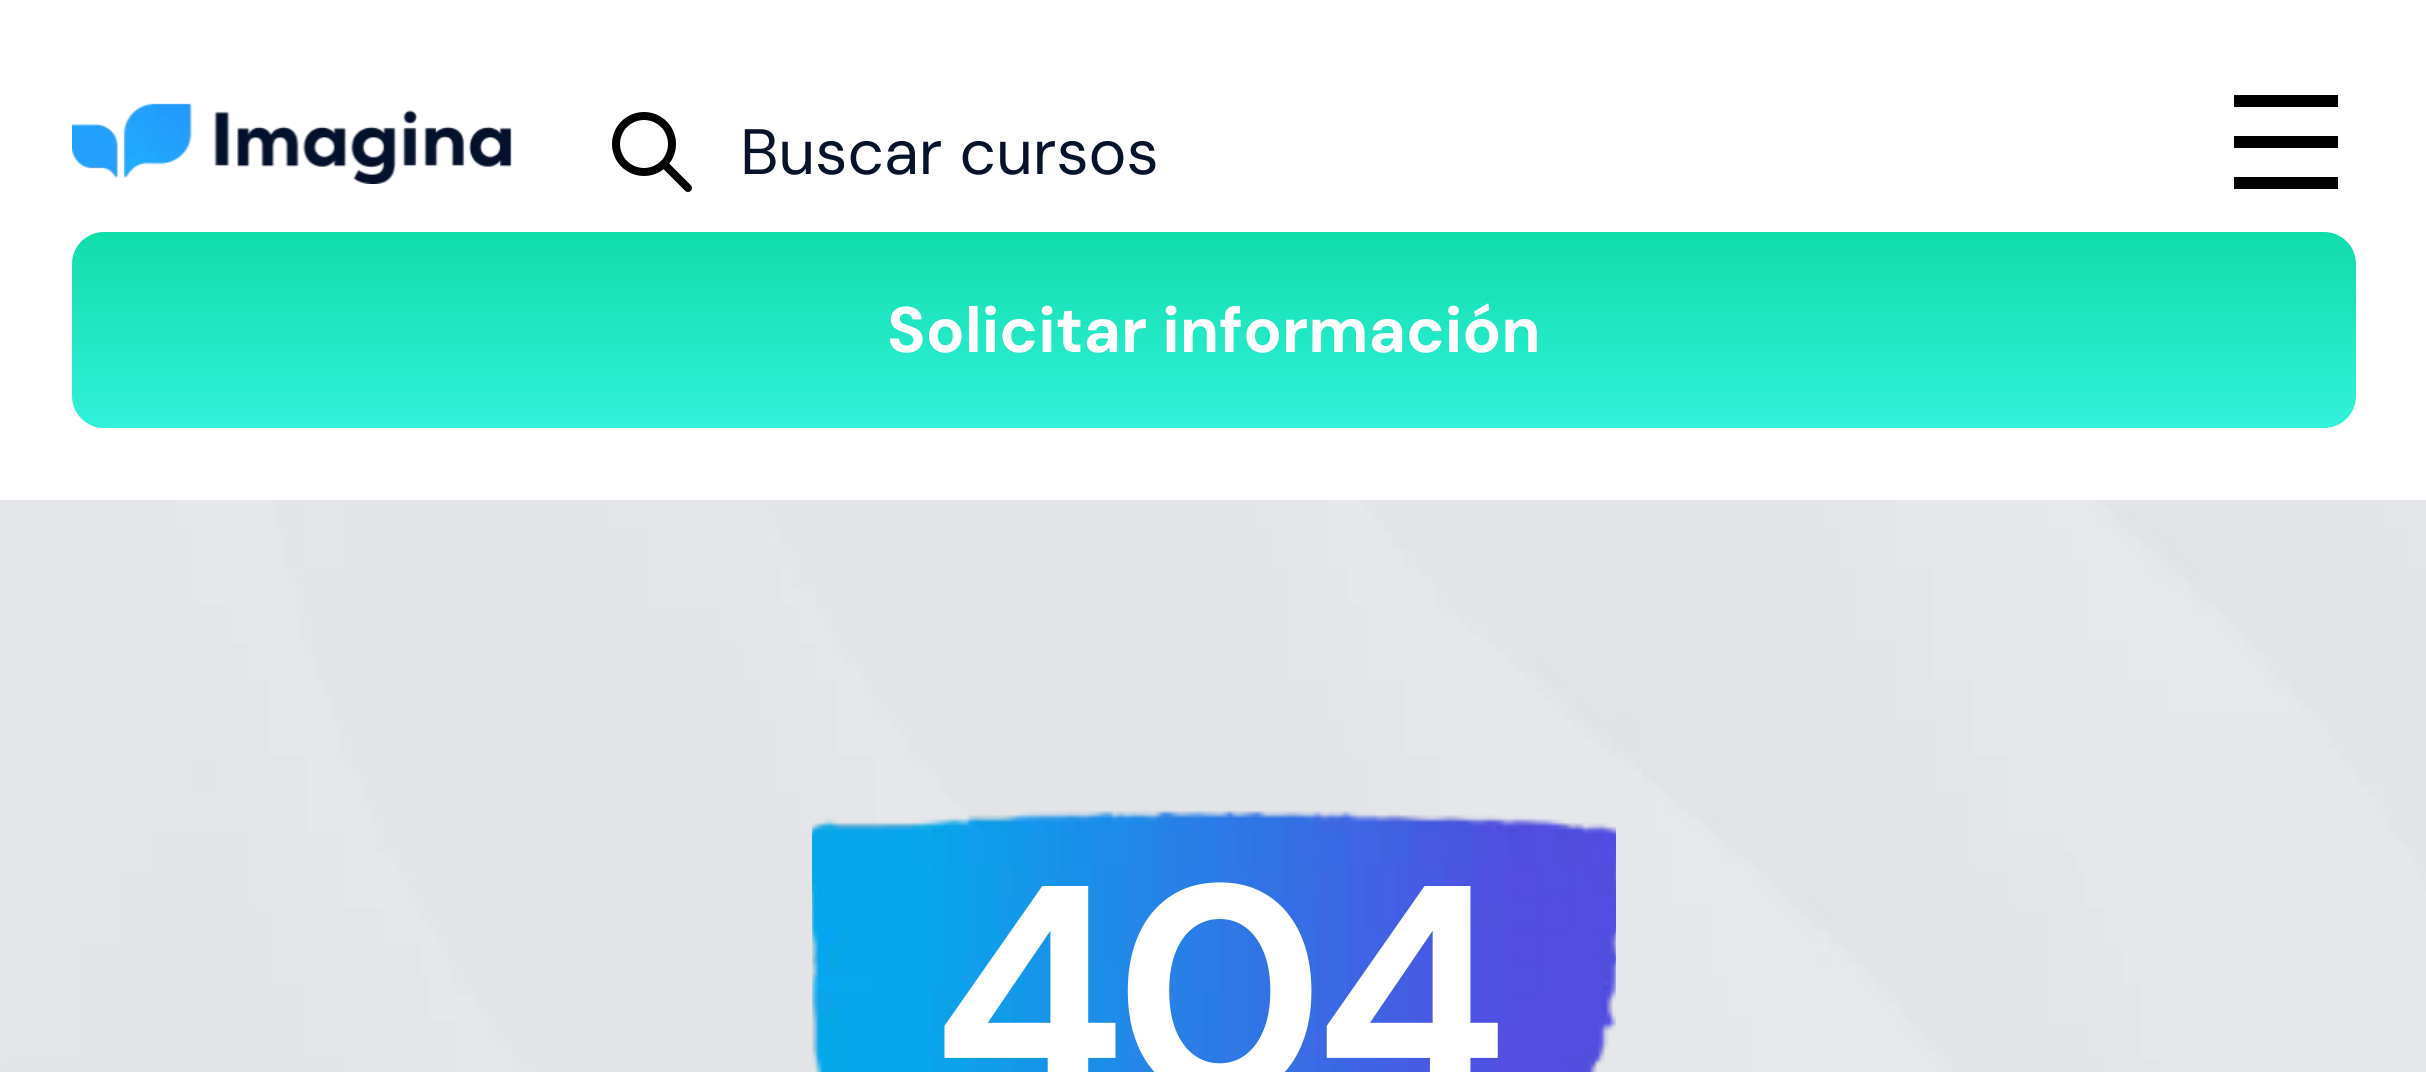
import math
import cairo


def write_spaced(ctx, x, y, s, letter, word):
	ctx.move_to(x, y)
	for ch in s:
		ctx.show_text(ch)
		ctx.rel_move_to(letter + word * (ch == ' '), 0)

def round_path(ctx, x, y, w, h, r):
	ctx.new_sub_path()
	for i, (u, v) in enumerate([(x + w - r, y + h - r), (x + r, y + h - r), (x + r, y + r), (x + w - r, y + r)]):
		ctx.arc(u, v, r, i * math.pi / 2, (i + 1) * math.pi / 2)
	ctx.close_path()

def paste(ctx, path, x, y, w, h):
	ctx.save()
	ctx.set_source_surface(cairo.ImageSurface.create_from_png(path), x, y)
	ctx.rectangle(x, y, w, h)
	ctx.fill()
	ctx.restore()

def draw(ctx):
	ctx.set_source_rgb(1, 1, 1)
	ctx.paint()
	paste(ctx, 'media/1.png', 72, 103, 440, 81)
	paste(ctx, 'media/2.png', 612, 112, 80, 80)
	ctx.select_font_face('DM Sans')
	ctx.set_font_size(64)
	ctx.set_source_rgb(0.031, 0.078, 0.169)
	ctx.move_to(740, 174)
	ctx.show_text('Buscar cursos')
	ctx.set_source_rgb(0, 0, 0)
	ctx.new_path()
	ctx.move_to(2234, 95)
	ctx.line_to(2338, 95)
	ctx.line_to(2338, 107)
	ctx.line_to(2234, 107)
	ctx.close_path()
	ctx.move_to(2234, 136)
	ctx.line_to(2338, 136)
	ctx.line_to(2338, 148)
	ctx.line_to(2234, 148)
	ctx.close_path()
	ctx.move_to(2234, 177)
	ctx.line_to(2338, 177)
	ctx.line_to(2338, 189)
	ctx.line_to(2234, 189)
	ctx.close_path()
	ctx.fill()
	gradient = cairo.LinearGradient(1214, 428, 1214, 232)
	gradient.add_color_stop_rgba(0, 0.196, 0.945, 0.855, 1)
	gradient.add_color_stop_rgba(1, 0.059, 0.867, 0.671, 1)
	ctx.set_source(gradient)
	round_path(ctx, 72, 232, 2284, 196, 32)
	ctx.fill()
	ctx.select_font_face('DM Sans', cairo.FONT_SLANT_NORMAL, cairo.FONT_WEIGHT_BOLD)
	ctx.set_source_rgb(1, 1, 1)
	ctx.move_to(887, 352)
	ctx.show_text('Solicitar información')
	paste(ctx, 'media/3.png', 0, 500, 2426, 572)
	paste(ctx, 'media/4.png', 812, 810, 804, 262)
	ctx.set_font_size(300)
	write_spaced(ctx, 931, 1096, '404', -12, 0)


surface = cairo.ImageSurface(cairo.FORMAT_RGB24, 2426, 1072)
ctx = cairo.Context(surface)
options = cairo.FontOptions()
options.set_hint_metrics(cairo.HINT_METRICS_OFF)
options.set_hint_style(cairo.HINT_STYLE_NONE)
ctx.set_font_options(options)
ctx.set_miter_limit(4)
draw(ctx)
surface.write_to_png('image.png')
